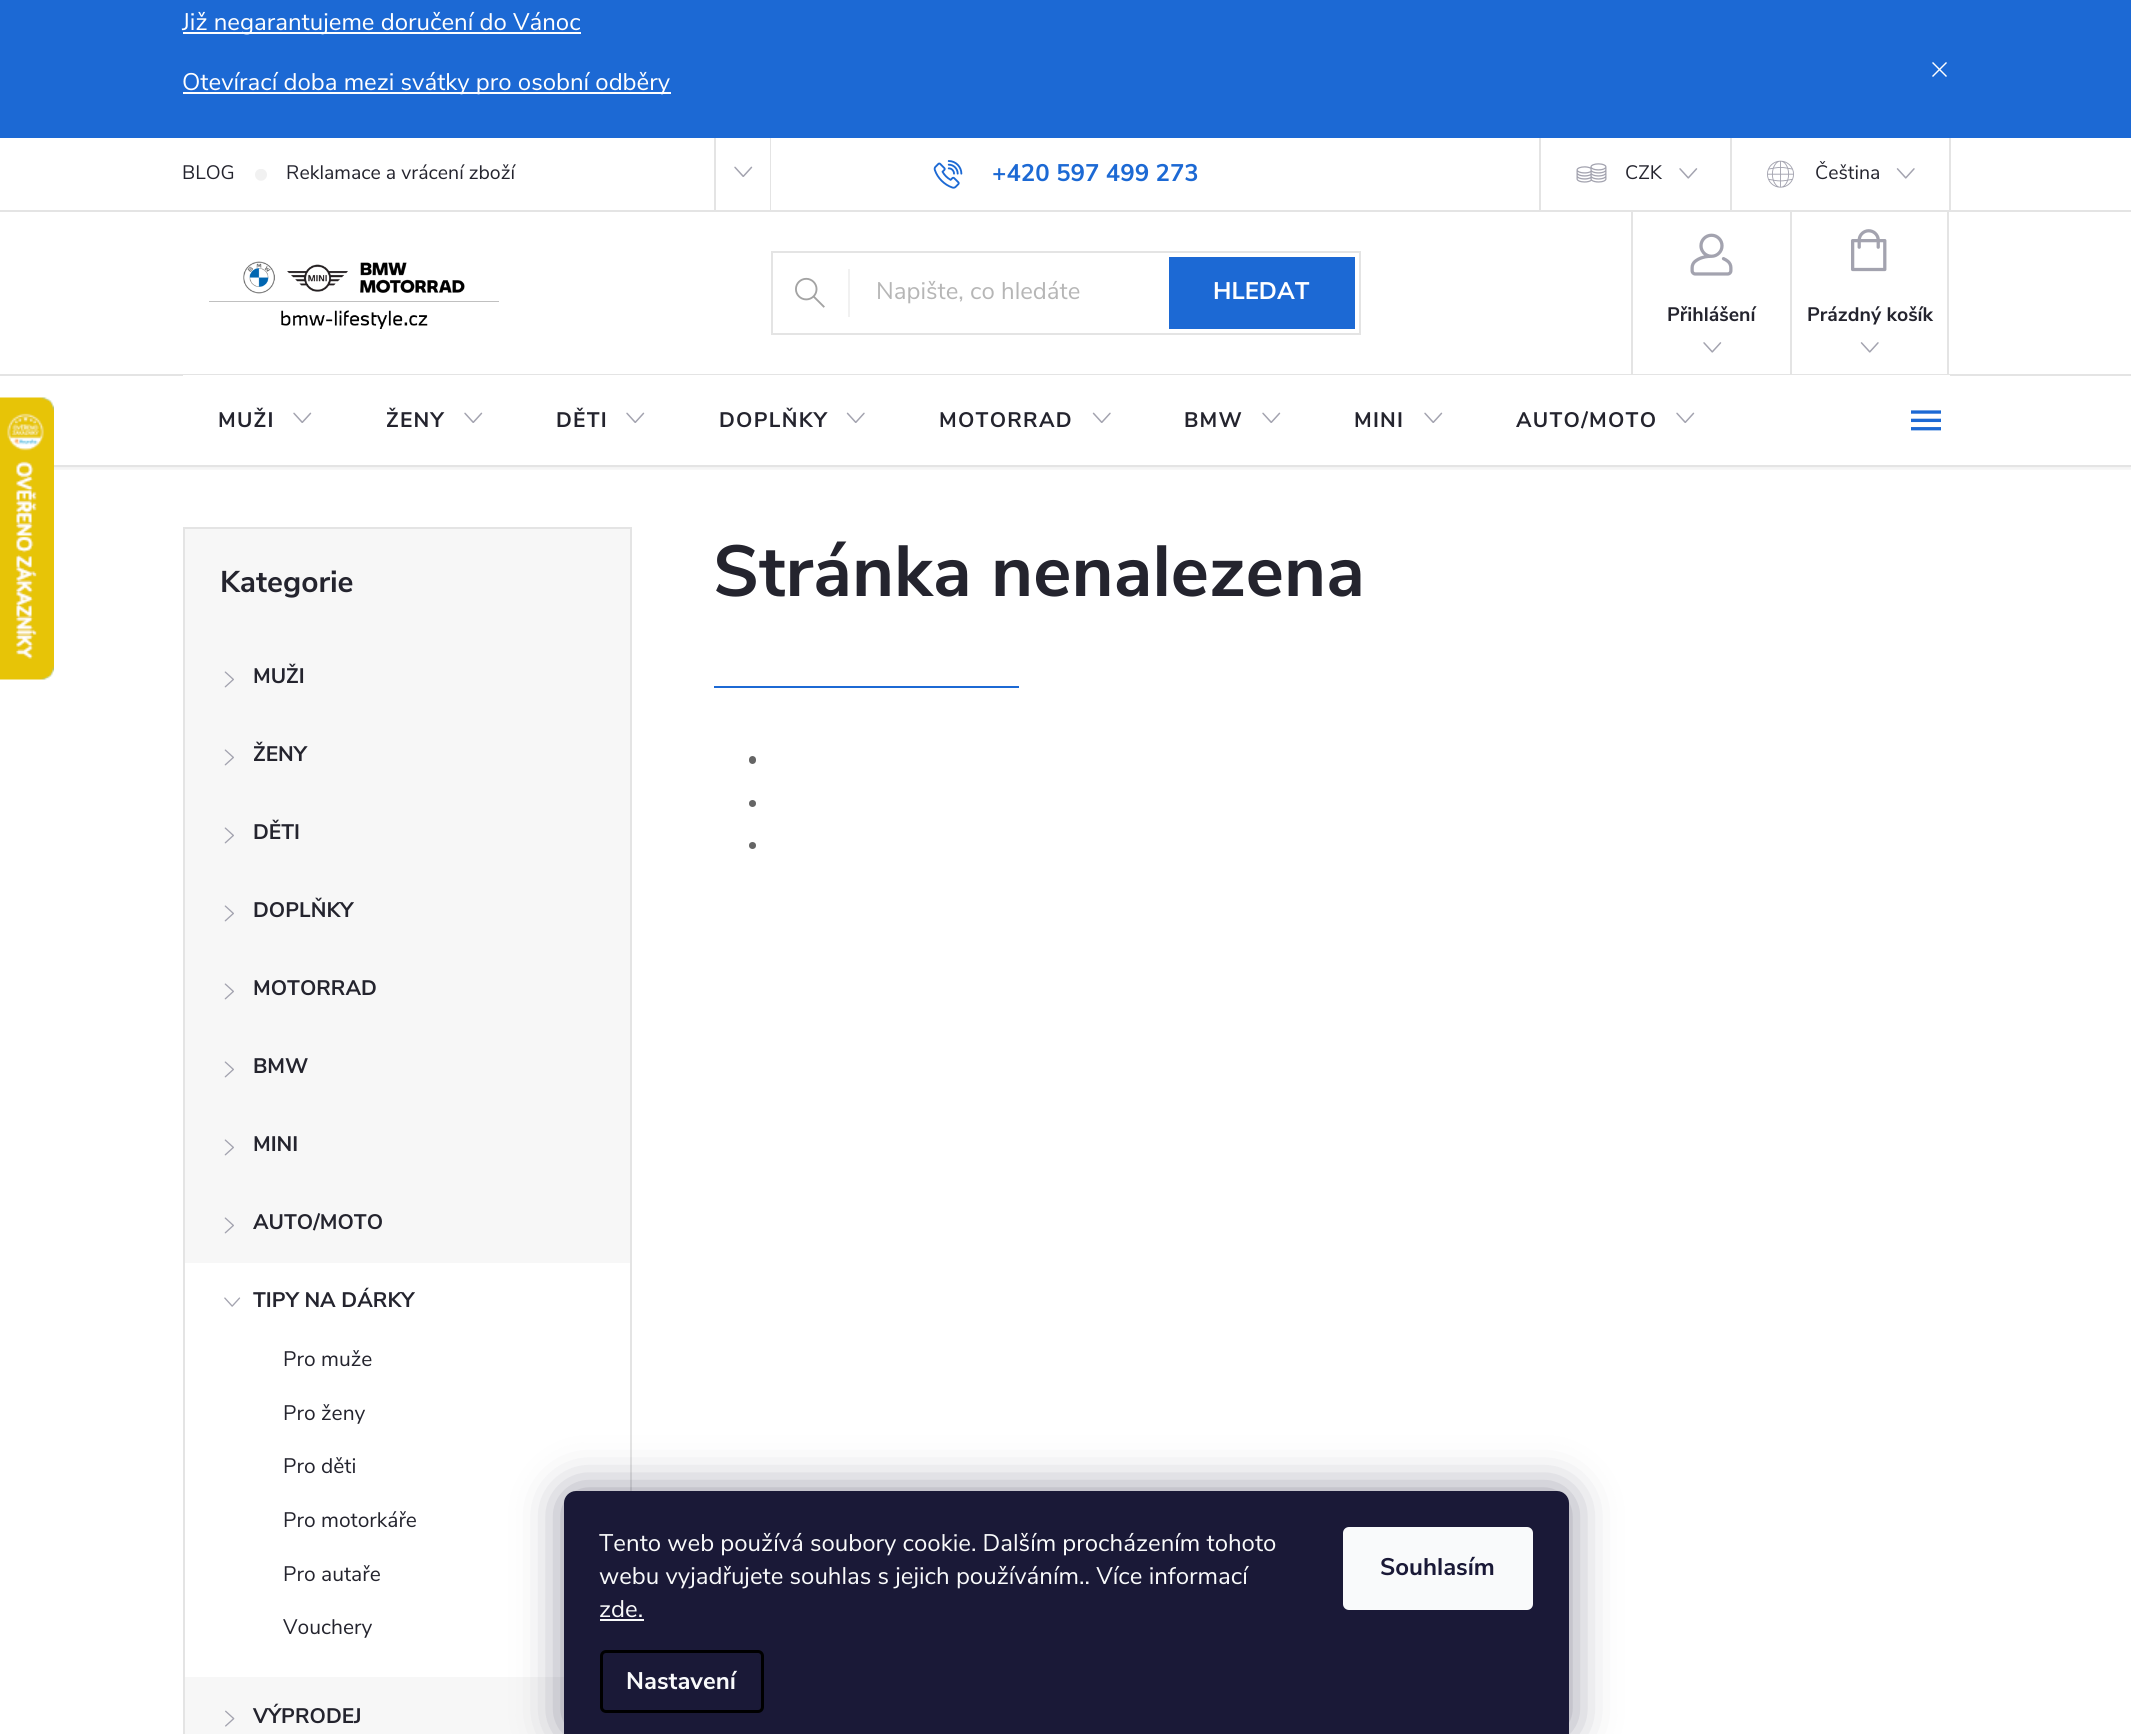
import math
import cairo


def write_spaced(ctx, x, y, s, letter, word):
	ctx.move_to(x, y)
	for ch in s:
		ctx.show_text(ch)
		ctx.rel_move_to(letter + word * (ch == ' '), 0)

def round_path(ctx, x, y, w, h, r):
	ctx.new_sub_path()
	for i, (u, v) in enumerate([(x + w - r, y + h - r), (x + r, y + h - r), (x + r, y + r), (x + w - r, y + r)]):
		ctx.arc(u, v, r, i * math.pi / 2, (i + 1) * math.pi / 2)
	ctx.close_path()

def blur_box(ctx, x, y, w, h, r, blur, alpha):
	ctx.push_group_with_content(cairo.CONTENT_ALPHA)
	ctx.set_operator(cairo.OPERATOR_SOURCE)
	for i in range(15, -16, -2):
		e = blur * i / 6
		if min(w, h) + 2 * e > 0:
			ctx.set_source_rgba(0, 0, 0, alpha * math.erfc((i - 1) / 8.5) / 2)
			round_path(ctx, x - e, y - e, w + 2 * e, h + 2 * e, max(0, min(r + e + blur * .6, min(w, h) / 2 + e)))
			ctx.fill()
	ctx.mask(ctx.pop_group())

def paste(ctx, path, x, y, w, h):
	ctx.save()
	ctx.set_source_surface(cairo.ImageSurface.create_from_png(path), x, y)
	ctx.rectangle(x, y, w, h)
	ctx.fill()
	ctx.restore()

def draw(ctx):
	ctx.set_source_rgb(1, 1, 1)
	ctx.paint()
	ctx.set_source_rgb(0.894, 0.894, 0.894)
	ctx.rectangle(1631, 212, 2, 162)
	ctx.rectangle(1947, 212, 2, 162)
	ctx.rectangle(1790, 212, 2, 162)
	ctx.fill()
	ctx.save()
	ctx.rectangle(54, 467, 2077, 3)
	ctx.clip()
	ctx.set_source_rgb(0, 0, 0)
	blur_box(ctx, 0, 377, 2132, 93, 0, 1.5, 0.05)
	ctx.restore()
	paste(ctx, 'media/1.png', 0, 397, 54, 283)
	ctx.set_source_rgb(0.11, 0.412, 0.831)
	ctx.rectangle(0, 0, 2131, 138)
	ctx.fill()
	ctx.set_source_rgb(1, 1, 1)
	ctx.rectangle(183, 32, 398, 2)
	ctx.fill()
	ctx.select_font_face('Nunito Sans')
	ctx.set_font_size(24)
	ctx.move_to(182, 30)
	ctx.show_text('Již negarantujeme doručení do Vánoc')
	ctx.rectangle(183, 92, 488, 2)
	ctx.fill()
	ctx.move_to(182, 90)
	ctx.show_text('Otevírací doba mezi svátky pro osobní odběry')
	ctx.new_path()
	ctx.move_to(1946, 62)
	ctx.line_to(1947, 63)
	ctx.line_to(1933, 77)
	ctx.line_to(1932, 76)
	ctx.close_path()
	ctx.fill()
	ctx.new_path()
	ctx.move_to(1933, 62)
	ctx.line_to(1947, 76)
	ctx.line_to(1946, 77)
	ctx.line_to(1932, 63)
	ctx.close_path()
	ctx.fill()
	ctx.set_source_rgb(0.894, 0.894, 0.894)
	ctx.rectangle(0, 210, 2131, 2)
	ctx.fill()
	ctx.set_font_size(19.5)
	ctx.set_source_rgb(0.141, 0.141, 0.18)
	ctx.move_to(182, 179)
	ctx.show_text('BLOG')
	paste(ctx, 'media/2.png', 255, 169, 12, 12)
	ctx.move_to(286, 179)
	ctx.show_text('Reklamace a vrácení zboží')
	ctx.set_source_rgb(0.894, 0.894, 0.894)
	ctx.rectangle(770, 138, 1, 72)
	ctx.fill()
	ctx.rectangle(714, 138, 2, 72)
	ctx.fill()
	paste(ctx, 'media/3.png', 734, 166, 19, 11)
	paste(ctx, 'media/4.png', 933, 160, 30, 29)
	ctx.select_font_face('Nunito Sans', cairo.FONT_SLANT_NORMAL, cairo.FONT_WEIGHT_BOLD)
	ctx.set_font_size(24)
	ctx.set_source_rgb(0.11, 0.412, 0.831)
	ctx.move_to(992, 181)
	ctx.show_text('+420 597 499 273')
	ctx.set_source_rgb(0.894, 0.894, 0.894)
	ctx.rectangle(1949, 138, 2, 72)
	ctx.fill()
	ctx.rectangle(1539, 138, 2, 72)
	ctx.fill()
	paste(ctx, 'media/5.png', 1576, 163, 31, 20)
	ctx.select_font_face('Nunito Sans')
	ctx.set_font_size(19.5)
	ctx.set_source_rgb(0.141, 0.141, 0.18)
	ctx.move_to(1625, 179)
	ctx.show_text('CZK')
	paste(ctx, 'media/6.png', 1679, 168, 19, 11)
	ctx.set_source_rgb(0.894, 0.894, 0.894)
	ctx.rectangle(1730, 138, 2, 72)
	ctx.fill()
	paste(ctx, 'media/7.png', 1767, 160, 27, 28)
	ctx.set_source_rgb(0.141, 0.141, 0.18)
	ctx.move_to(1815, 179)
	ctx.show_text('Čeština')
	paste(ctx, 'media/8.png', 1896, 168, 19, 11)
	paste(ctx, 'media/9.png', 209, 261, 290, 68)
	ctx.rectangle(772, 252, 588, 82)
	ctx.set_source_rgb(0.894, 0.894, 0.894)
	ctx.stroke()
	ctx.set_source_rgb(0.945, 0.945, 0.945)
	ctx.rectangle(848, 269, 2, 48)
	ctx.fill()
	paste(ctx, 'media/10.png', 795, 277, 30, 31)
	ctx.set_font_size(24)
	ctx.set_source_rgb(0.714, 0.714, 0.714)
	ctx.move_to(876, 299)
	ctx.show_text('Napište, co hledáte')
	ctx.set_source_rgb(0.11, 0.412, 0.831)
	ctx.rectangle(1169, 257, 186, 72)
	ctx.fill()
	ctx.select_font_face('Nunito Sans', cairo.FONT_SLANT_NORMAL, cairo.FONT_WEIGHT_BOLD)
	ctx.set_source_rgb(1, 1, 1)
	ctx.move_to(1213, 299)
	ctx.show_text('HLEDAT')
	paste(ctx, 'media/11.png', 1690, 233, 43, 43)
	ctx.set_font_size(19.5)
	ctx.set_source_rgb(0.141, 0.141, 0.18)
	ctx.move_to(1667, 321)
	ctx.show_text('Přihlášení')
	paste(ctx, 'media/6.png', 1703, 342, 19, 11)
	paste(ctx, 'media/12.png', 1851, 229, 36, 43)
	ctx.move_to(1807, 321)
	ctx.show_text('Prázdný košík')
	paste(ctx, 'media/8.png', 1860, 342, 19, 11)
	ctx.set_source_rgb(0.894, 0.894, 0.894)
	ctx.rectangle(0, 374, 2131, 2)
	ctx.fill()
	ctx.set_source_rgb(1, 1, 1)
	ctx.rectangle(183, 375, 1767, 1)
	ctx.fill()
	ctx.set_font_size(21)
	ctx.set_source_rgb(0.141, 0.141, 0.18)
	write_spaced(ctx, 218, 427, 'MUŽI', 1.25, 0)
	paste(ctx, 'media/3.png', 293, 412, 19, 11)
	write_spaced(ctx, 386, 427, 'ŽENY', 1.25, 0)
	paste(ctx, 'media/3.png', 464, 412, 19, 11)
	write_spaced(ctx, 556, 427, 'DĚTI', 1.25, 0)
	paste(ctx, 'media/3.png', 626, 412, 19, 11)
	write_spaced(ctx, 719, 427, 'DOPLŇKY', 1.25, 0)
	paste(ctx, 'media/13.png', 846, 412, 19, 11)
	write_spaced(ctx, 939, 427, 'MOTORRAD', 1.25, 0)
	paste(ctx, 'media/13.png', 1092, 412, 19, 11)
	write_spaced(ctx, 1184, 427, 'BMW', 1.25, 0)
	paste(ctx, 'media/3.png', 1262, 412, 19, 11)
	write_spaced(ctx, 1354, 427, 'MINI', 1.25, 0)
	paste(ctx, 'media/3.png', 1424, 412, 19, 11)
	write_spaced(ctx, 1516, 427, 'AUTO/MOTO', 1.25, 0)
	paste(ctx, 'media/3.png', 1676, 412, 19, 11)
	paste(ctx, 'media/14.png', 1911, 410, 30, 21)
	ctx.set_source_rgb(0.894, 0.894, 0.894)
	ctx.rectangle(54, 465, 2077, 2)
	ctx.fill()
	ctx.set_source_rgb(0.965, 0.965, 0.965)
	ctx.rectangle(184, 528, 447, 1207)
	ctx.fill_preserve()
	ctx.set_source_rgb(0.894, 0.894, 0.894)
	ctx.stroke()
	ctx.set_font_size(30)
	ctx.set_source_rgb(0.141, 0.141, 0.18)
	ctx.move_to(220, 592)
	ctx.show_text('Kategorie')
	paste(ctx, 'media/15.png', 224, 671, 10, 17)
	ctx.set_font_size(21)
	ctx.move_to(253, 683)
	ctx.show_text('MUŽI')
	paste(ctx, 'media/15.png', 224, 749, 10, 17)
	ctx.move_to(253, 761)
	ctx.show_text('ŽENY')
	paste(ctx, 'media/15.png', 224, 827, 10, 17)
	ctx.move_to(253, 839)
	ctx.show_text('DĚTI')
	paste(ctx, 'media/15.png', 224, 905, 10, 17)
	ctx.move_to(253, 917)
	ctx.show_text('DOPLŇKY')
	paste(ctx, 'media/15.png', 224, 983, 10, 17)
	ctx.move_to(253, 995)
	ctx.show_text('MOTORRAD')
	paste(ctx, 'media/15.png', 224, 1061, 10, 17)
	ctx.move_to(253, 1073)
	ctx.show_text('BMW')
	paste(ctx, 'media/15.png', 224, 1139, 10, 17)
	ctx.move_to(253, 1151)
	ctx.show_text('MINI')
	paste(ctx, 'media/15.png', 224, 1217, 10, 17)
	ctx.move_to(253, 1229)
	ctx.show_text('AUTO/MOTO')
	ctx.set_source_rgb(1, 1, 1)
	ctx.rectangle(185, 1263, 445, 414)
	ctx.fill()
	paste(ctx, 'media/16.png', 224, 1297, 17, 10)
	ctx.set_source_rgb(0.141, 0.141, 0.18)
	ctx.move_to(253, 1307)
	ctx.show_text('TIPY NA DÁRKY')
	ctx.select_font_face('Nunito Sans')
	for x, y, s in [
		(283, 1366, 'Pro muže'),
		(283, 1420, 'Pro ženy'),
		(283, 1473, 'Pro děti'),
		(283, 1527, 'Pro motorkáře'),
		(283, 1581, 'Pro autaře'),
		(283, 1634, 'Vouchery'),
	]:
		ctx.move_to(x, y)
		ctx.show_text(s)
	paste(ctx, 'media/17.png', 225, 1710, 10, 17)
	ctx.select_font_face('Nunito Sans', cairo.FONT_SLANT_NORMAL, cairo.FONT_WEIGHT_BOLD)
	ctx.move_to(253, 1723)
	ctx.show_text('VÝPRODEJ')
	ctx.set_font_size(72)
	ctx.move_to(713, 596)
	ctx.show_text('Stránka nenalezena')
	ctx.set_source_rgb(0.11, 0.412, 0.831)
	ctx.rectangle(714, 686, 305, 2)
	ctx.fill()
	ctx.set_source_rgb(0.396, 0.396, 0.396)
	round_path(ctx, 749, 756, 7, 8, 3.5)
	ctx.fill()
	ctx.arc(752.5, 803.5, 3.5, 0, 2 * math.pi)
	ctx.fill()
	ctx.arc(752.5, 845.5, 3.5, 0, 2 * math.pi)
	ctx.fill()
	ctx.set_source_rgb(0.106, 0.098, 0.224)
	blur_box(ctx, 564, 1491, 1005, 243, 12, 22.5, 0.5)
	ctx.set_source_rgb(0.102, 0.098, 0.216)
	ctx.new_path()
	ctx.move_to(576, 1491)
	ctx.line_to(1557, 1491)
	ctx.curve_to(1563.5, 1491, 1569, 1496.5, 1569, 1503)
	ctx.line_to(1569, 1734)
	ctx.line_to(564, 1734)
	ctx.line_to(564, 1503)
	ctx.curve_to(564, 1496.5, 569.5, 1491, 576, 1491)
	ctx.close_path()
	ctx.fill()
	ctx.select_font_face('Nunito Sans')
	ctx.set_font_size(24)
	ctx.set_source_rgb(0.973, 0.98, 0.984)
	for x, y, s in [
		(599, 1551, 'Tento web používá soubory cookie. Dalším procházením tohoto'),
		(599, 1584, 'webu vyjadřujete souhlas s jejich používáním.. Více informací'),
		(599, 1617, 'zde.'),
	]:
		ctx.move_to(x, y)
		ctx.show_text(s)
	ctx.rectangle(600, 1619, 44, 2)
	ctx.fill()
	round_path(ctx, 601.5, 1651.5, 161, 60, 4.5)
	ctx.set_source_rgb(0, 0, 0)
	ctx.set_line_width(3)
	ctx.stroke()
	ctx.select_font_face('Nunito Sans', cairo.FONT_SLANT_NORMAL, cairo.FONT_WEIGHT_BOLD)
	ctx.set_source_rgb(0.973, 0.98, 0.984)
	ctx.move_to(626, 1689)
	ctx.show_text('Nastavení')
	round_path(ctx, 1343, 1527, 190, 83, 6)
	ctx.fill()
	ctx.set_source_rgb(0.102, 0.098, 0.216)
	ctx.move_to(1380, 1575)
	ctx.show_text('Souhlasím')


surface = cairo.ImageSurface(cairo.FORMAT_RGB24, 2131, 1734)
ctx = cairo.Context(surface)
options = cairo.FontOptions()
options.set_hint_metrics(cairo.HINT_METRICS_OFF)
options.set_hint_style(cairo.HINT_STYLE_NONE)
ctx.set_font_options(options)
ctx.set_miter_limit(4)
draw(ctx)
surface.write_to_png('image.png')
